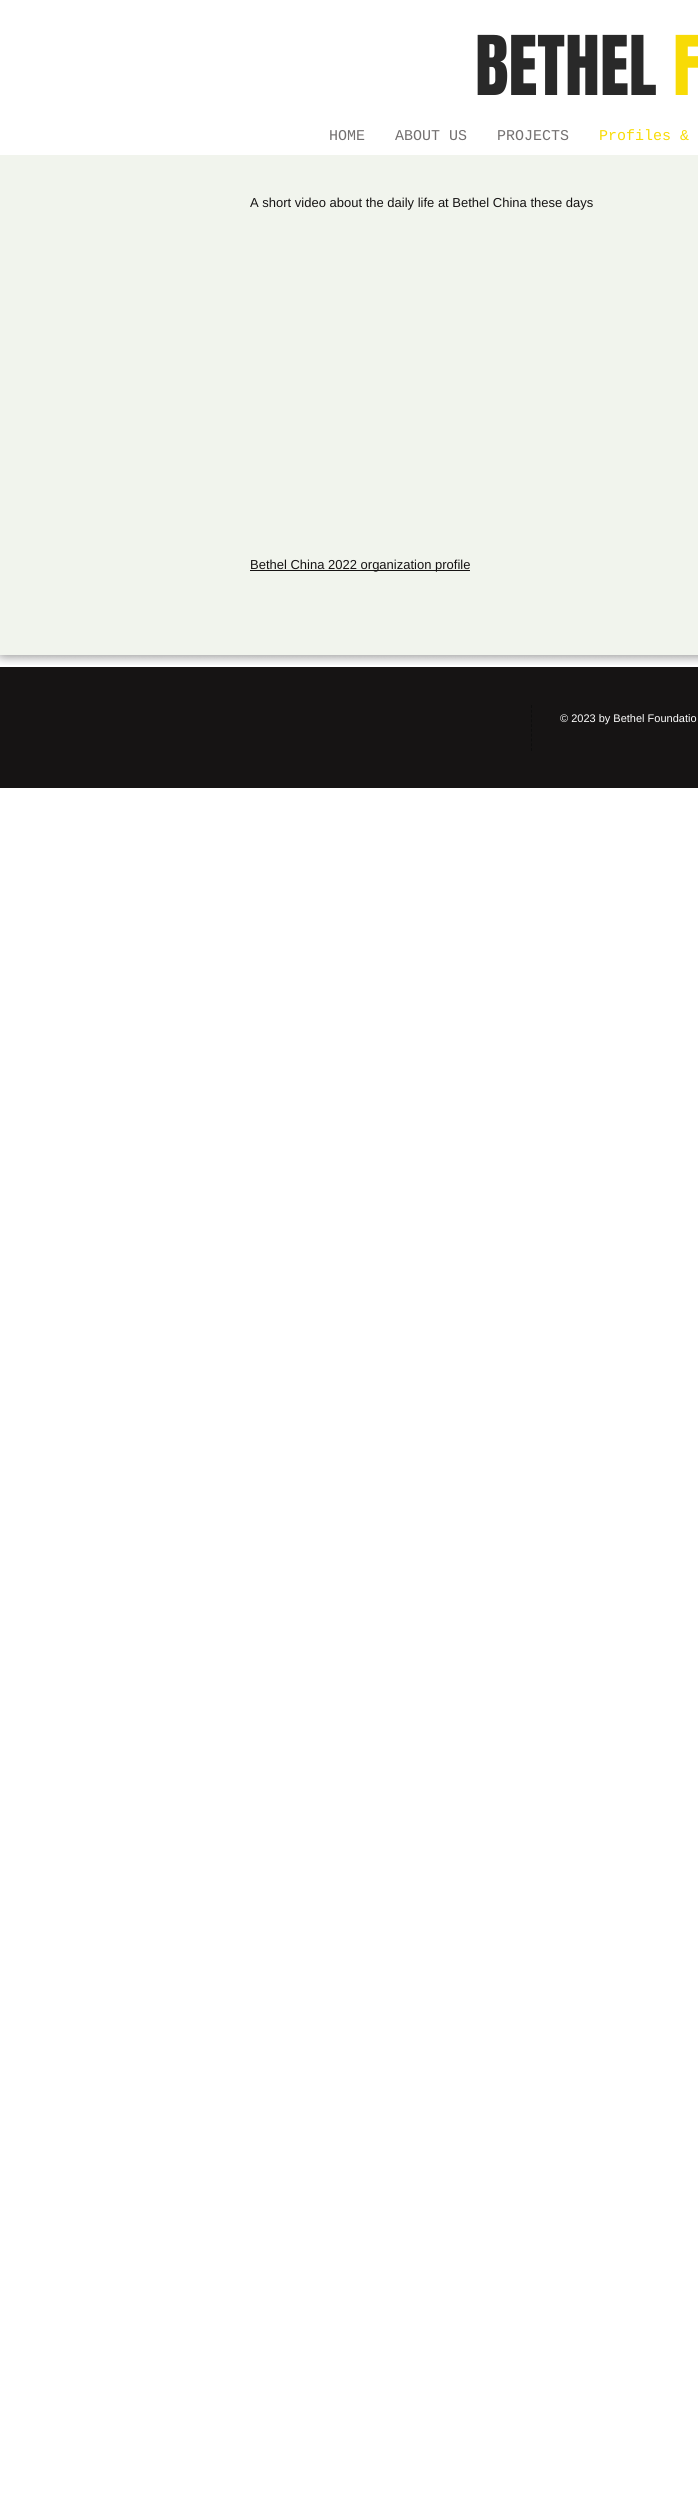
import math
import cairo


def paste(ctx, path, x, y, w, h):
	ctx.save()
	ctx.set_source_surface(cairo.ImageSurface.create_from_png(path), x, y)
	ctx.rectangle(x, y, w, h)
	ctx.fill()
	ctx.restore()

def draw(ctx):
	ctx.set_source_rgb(1, 1, 1)
	ctx.paint()
	ctx.select_font_face('Anton')
	ctx.set_font_size(70)
	ctx.set_source_rgb(0.161, 0.161, 0.161)
	ctx.move_to(475, 95)
	ctx.show_text('BETHEL')
	ctx.set_source_rgb(0.969, 0.859, 0.027)
	ctx.move_to(673, 95)
	ctx.show_text('F')
	ctx.select_font_face('Liberation Mono')
	ctx.set_font_size(15)
	ctx.set_source_rgb(0.451, 0.439, 0.439)
	for x, y, s in [
		(329, 140, 'HOME'),
		(395, 140, 'ABOUT US'),
		(497, 140, 'PROJECTS'),
	]:
		ctx.move_to(x, y)
		ctx.show_text(s)
	ctx.set_source_rgb(0.969, 0.859, 0.027)
	ctx.move_to(599, 140)
	ctx.show_text('Profiles &')
	ctx.set_source_rgb(0.945, 0.957, 0.929)
	ctx.rectangle(0, 155, 698, 500)
	ctx.fill()
	paste(ctx, 'media/1.png', 0, 655, 35, 10)
	paste(ctx, 'media/2.png', 35, 655, 663, 10)
	ctx.select_font_face('Liberation Sans')
	ctx.set_font_size(13)
	ctx.set_source_rgb(0.086, 0.082, 0.082)
	ctx.move_to(250, 207)
	ctx.show_text('A short video about the daily life at Bethel China these days')
	ctx.rectangle(250, 570, 220, 1)
	ctx.fill()
	ctx.move_to(250, 569)
	ctx.show_text('Bethel China 2022 organization profile')
	ctx.rectangle(0, 667, 698, 121)
	ctx.fill()
	ctx.new_path()
	ctx.move_to(531.5, 705)
	ctx.line_to(531.5, 751)
	ctx.set_source_rgb(0.055, 0.055, 0.055)
	ctx.set_line_width(1)
	ctx.set_dash([3, 1.78])
	ctx.stroke()
	ctx.set_font_size(11)
	ctx.set_source_rgb(1, 1, 1)
	ctx.move_to(560, 722)
	ctx.show_text('© 2023 by Bethel Foundatio')


surface = cairo.ImageSurface(cairo.FORMAT_RGB24, 698, 2493)
ctx = cairo.Context(surface)
options = cairo.FontOptions()
options.set_hint_metrics(cairo.HINT_METRICS_OFF)
options.set_hint_style(cairo.HINT_STYLE_NONE)
ctx.set_font_options(options)
ctx.set_miter_limit(4)
draw(ctx)
surface.write_to_png('image.png')
